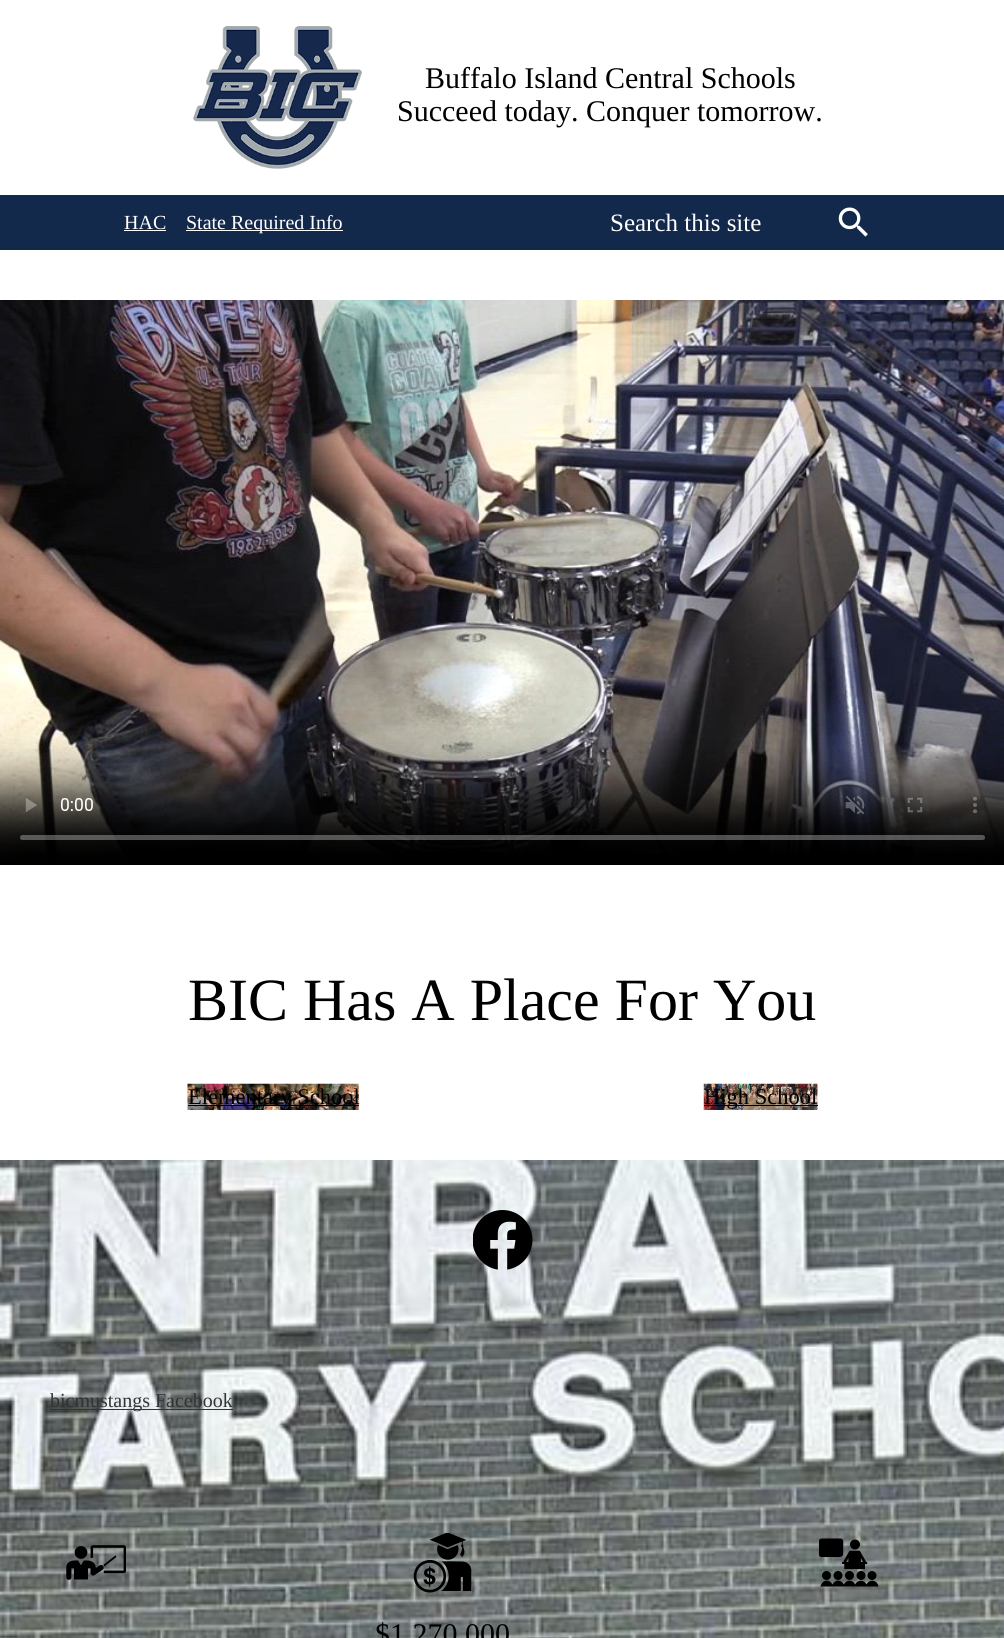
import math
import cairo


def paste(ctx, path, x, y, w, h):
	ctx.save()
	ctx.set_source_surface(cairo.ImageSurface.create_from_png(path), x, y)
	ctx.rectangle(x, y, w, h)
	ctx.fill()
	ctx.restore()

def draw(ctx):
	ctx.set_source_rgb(1, 1, 1)
	ctx.paint()
	paste(ctx, 'media/1.png', 193, 26, 169, 143)
	ctx.select_font_face('Liberation Serif')
	ctx.set_font_size(30)
	ctx.set_source_rgb(0, 0, 0)
	ctx.move_to(425, 88)
	ctx.show_text('Buffalo Island Central Schools')
	ctx.move_to(397, 121)
	ctx.show_text('Succeed today. Conquer tomorrow.')
	ctx.set_source_rgb(0.075, 0.161, 0.294)
	ctx.rectangle(0, 195, 1004, 55)
	ctx.fill()
	ctx.set_font_size(20)
	ctx.set_source_rgb(1, 1, 1)
	ctx.move_to(124, 229)
	ctx.show_text('HAC')
	ctx.rectangle(124, 230, 42, 1)
	ctx.fill()
	ctx.rectangle(186, 230, 157, 1)
	ctx.fill()
	ctx.move_to(186, 229)
	ctx.show_text('State Required Info')
	ctx.set_font_size(25)
	ctx.move_to(610, 231)
	ctx.show_text('Search this site')
	paste(ctx, 'media/2.png', 838, 207, 30, 30)
	paste(ctx, 'media/3.png', 0, 300, 1004, 565)
	ctx.set_font_size(60)
	ctx.set_source_rgb(0, 0, 0)
	ctx.move_to(188, 1020)
	ctx.show_text('BIC Has A Place For You')
	paste(ctx, 'media/4.png', 187, 1083, 172, 27)
	ctx.rectangle(188, 1105, 171, 1)
	ctx.fill()
	ctx.set_font_size(22.5)
	ctx.move_to(188, 1104)
	ctx.show_text('Elementary School')
	paste(ctx, 'media/5.png', 703, 1083, 115, 27)
	ctx.rectangle(704, 1105, 114, 1)
	ctx.fill()
	ctx.move_to(704, 1104)
	ctx.show_text('High School')
	paste(ctx, 'media/6.png', 0, 1160, 1004, 478)
	paste(ctx, 'media/7.png', 473, 1210, 60, 60)
	ctx.set_source_rgb(0.2, 0.2, 0.2)
	ctx.rectangle(50, 1409, 183, 1)
	ctx.fill()
	ctx.set_font_size(20)
	ctx.move_to(50, 1407)
	ctx.show_text('bicmustangs Facebook')
	paste(ctx, 'media/8.png', 66, 1545, 60, 35)
	paste(ctx, 'media/9.png', 819, 1538, 60, 49)
	paste(ctx, 'media/10.png', 413, 1533, 59, 60)
	ctx.set_font_size(30)
	ctx.set_source_rgb(0, 0, 0)
	ctx.move_to(375, 1644)
	ctx.show_text('$1,270,000')


surface = cairo.ImageSurface(cairo.FORMAT_RGB24, 1004, 1638)
ctx = cairo.Context(surface)
options = cairo.FontOptions()
options.set_hint_metrics(cairo.HINT_METRICS_OFF)
options.set_hint_style(cairo.HINT_STYLE_NONE)
ctx.set_font_options(options)
ctx.set_miter_limit(4)
draw(ctx)
surface.write_to_png('image.png')
